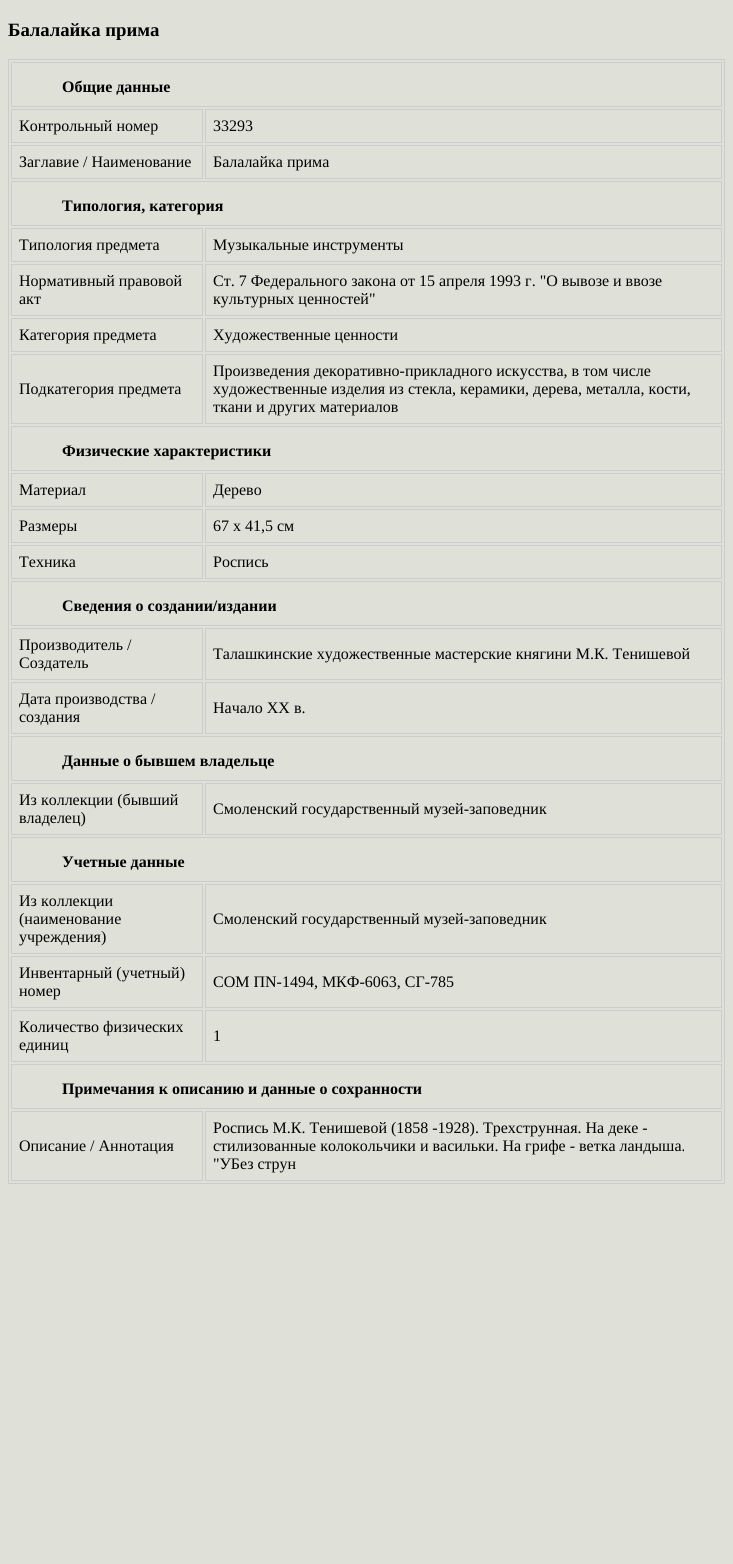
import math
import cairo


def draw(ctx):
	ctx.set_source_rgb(0.875, 0.878, 0.847)
	ctx.paint()
	ctx.select_font_face('Liberation Serif', cairo.FONT_SLANT_NORMAL, cairo.FONT_WEIGHT_BOLD)
	ctx.set_font_size(18.75)
	ctx.set_source_rgb(0, 0, 0)
	ctx.move_to(8, 36)
	ctx.show_text('Балалайка прима')
	ctx.rectangle(8.5, 59.5, 716, 1124)
	ctx.set_source_rgb(0.8, 0.8, 0.8)
	ctx.set_line_width(1)
	ctx.stroke()
	ctx.rectangle(11.5, 62.5, 710, 44)
	ctx.stroke()
	ctx.set_font_size(16)
	ctx.set_source_rgb(0, 0, 0)
	ctx.move_to(62, 92)
	ctx.show_text('Общие данные')
	ctx.rectangle(11.5, 109.5, 191, 33)
	ctx.set_source_rgb(0.8, 0.8, 0.8)
	ctx.stroke()
	ctx.select_font_face('Liberation Serif')
	ctx.set_source_rgb(0, 0, 0)
	ctx.move_to(19, 131)
	ctx.show_text('Контрольный номер')
	ctx.rectangle(205.5, 109.5, 516, 33)
	ctx.set_source_rgb(0.8, 0.8, 0.8)
	ctx.stroke()
	ctx.set_source_rgb(0, 0, 0)
	ctx.move_to(213, 131)
	ctx.show_text('33293')
	ctx.rectangle(11.5, 145.5, 191, 33)
	ctx.set_source_rgb(0.8, 0.8, 0.8)
	ctx.stroke()
	ctx.set_source_rgb(0, 0, 0)
	ctx.move_to(19, 167)
	ctx.show_text('Заглавие / Наименование')
	ctx.rectangle(205.5, 145.5, 516, 33)
	ctx.set_source_rgb(0.8, 0.8, 0.8)
	ctx.stroke()
	ctx.set_source_rgb(0, 0, 0)
	ctx.move_to(213, 167)
	ctx.show_text('Балалайка прима')
	ctx.rectangle(11.5, 181.5, 710, 44)
	ctx.set_source_rgb(0.8, 0.8, 0.8)
	ctx.stroke()
	ctx.select_font_face('Liberation Serif', cairo.FONT_SLANT_NORMAL, cairo.FONT_WEIGHT_BOLD)
	ctx.set_source_rgb(0, 0, 0)
	ctx.move_to(62, 211)
	ctx.show_text('Типология, категория')
	ctx.rectangle(11.5, 228.5, 191, 33)
	ctx.set_source_rgb(0.8, 0.8, 0.8)
	ctx.stroke()
	ctx.select_font_face('Liberation Serif')
	ctx.set_source_rgb(0, 0, 0)
	ctx.move_to(19, 250)
	ctx.show_text('Типология предмета')
	ctx.rectangle(205.5, 228.5, 516, 33)
	ctx.set_source_rgb(0.8, 0.8, 0.8)
	ctx.stroke()
	ctx.set_source_rgb(0, 0, 0)
	ctx.move_to(213, 250)
	ctx.show_text('Музыкальные инструменты')
	ctx.rectangle(11.5, 264.5, 191, 51)
	ctx.set_source_rgb(0.8, 0.8, 0.8)
	ctx.stroke()
	ctx.set_source_rgb(0, 0, 0)
	ctx.move_to(19, 286)
	ctx.show_text('Нормативный правовой')
	ctx.move_to(19, 304)
	ctx.show_text('акт')
	ctx.rectangle(205.5, 264.5, 516, 51)
	ctx.set_source_rgb(0.8, 0.8, 0.8)
	ctx.stroke()
	ctx.set_source_rgb(0, 0, 0)
	ctx.move_to(213, 286)
	ctx.show_text('Ст. 7 Федерального закона от 15 апреля 1993 г. "О вывозе и ввозе')
	ctx.move_to(213, 304)
	ctx.show_text('культурных ценностей"')
	ctx.rectangle(11.5, 318.5, 191, 33)
	ctx.set_source_rgb(0.8, 0.8, 0.8)
	ctx.stroke()
	ctx.set_source_rgb(0, 0, 0)
	ctx.move_to(19, 340)
	ctx.show_text('Категория предмета')
	ctx.rectangle(205.5, 318.5, 516, 33)
	ctx.set_source_rgb(0.8, 0.8, 0.8)
	ctx.stroke()
	ctx.set_source_rgb(0, 0, 0)
	ctx.move_to(213, 340)
	ctx.show_text('Художественные ценности')
	ctx.rectangle(11.5, 354.5, 191, 69)
	ctx.set_source_rgb(0.8, 0.8, 0.8)
	ctx.stroke()
	ctx.set_source_rgb(0, 0, 0)
	ctx.move_to(19, 394)
	ctx.show_text('Подкатегория предмета')
	ctx.rectangle(205.5, 354.5, 516, 69)
	ctx.set_source_rgb(0.8, 0.8, 0.8)
	ctx.stroke()
	ctx.set_source_rgb(0, 0, 0)
	for x, y, s in [
		(213, 376, 'Произведения декоративно-прикладного искусства, в том числе'),
		(213, 394, 'художественные изделия из стекла, керамики, дерева, металла, кости,'),
		(213, 412, 'ткани и других материалов'),
	]:
		ctx.move_to(x, y)
		ctx.show_text(s)
	ctx.rectangle(11.5, 426.5, 710, 44)
	ctx.set_source_rgb(0.8, 0.8, 0.8)
	ctx.stroke()
	ctx.select_font_face('Liberation Serif', cairo.FONT_SLANT_NORMAL, cairo.FONT_WEIGHT_BOLD)
	ctx.set_source_rgb(0, 0, 0)
	ctx.move_to(62, 456)
	ctx.show_text('Физические характеристики')
	ctx.rectangle(11.5, 473.5, 191, 33)
	ctx.set_source_rgb(0.8, 0.8, 0.8)
	ctx.stroke()
	ctx.select_font_face('Liberation Serif')
	ctx.set_source_rgb(0, 0, 0)
	ctx.move_to(19, 495)
	ctx.show_text('Материал')
	ctx.rectangle(205.5, 473.5, 516, 33)
	ctx.set_source_rgb(0.8, 0.8, 0.8)
	ctx.stroke()
	ctx.set_source_rgb(0, 0, 0)
	ctx.move_to(213, 495)
	ctx.show_text('Дерево')
	ctx.rectangle(11.5, 509.5, 191, 33)
	ctx.set_source_rgb(0.8, 0.8, 0.8)
	ctx.stroke()
	ctx.set_source_rgb(0, 0, 0)
	ctx.move_to(19, 531)
	ctx.show_text('Размеры')
	ctx.rectangle(205.5, 509.5, 516, 33)
	ctx.set_source_rgb(0.8, 0.8, 0.8)
	ctx.stroke()
	ctx.set_source_rgb(0, 0, 0)
	ctx.move_to(213, 531)
	ctx.show_text('67 х 41,5 см')
	ctx.rectangle(11.5, 545.5, 191, 33)
	ctx.set_source_rgb(0.8, 0.8, 0.8)
	ctx.stroke()
	ctx.set_source_rgb(0, 0, 0)
	ctx.move_to(19, 567)
	ctx.show_text('Техника')
	ctx.rectangle(205.5, 545.5, 516, 33)
	ctx.set_source_rgb(0.8, 0.8, 0.8)
	ctx.stroke()
	ctx.set_source_rgb(0, 0, 0)
	ctx.move_to(213, 567)
	ctx.show_text('Роспись')
	ctx.rectangle(11.5, 581.5, 710, 44)
	ctx.set_source_rgb(0.8, 0.8, 0.8)
	ctx.stroke()
	ctx.select_font_face('Liberation Serif', cairo.FONT_SLANT_NORMAL, cairo.FONT_WEIGHT_BOLD)
	ctx.set_source_rgb(0, 0, 0)
	ctx.move_to(62, 611)
	ctx.show_text('Сведения о создании/издании')
	ctx.rectangle(11.5, 628.5, 191, 51)
	ctx.set_source_rgb(0.8, 0.8, 0.8)
	ctx.stroke()
	ctx.select_font_face('Liberation Serif')
	ctx.set_source_rgb(0, 0, 0)
	ctx.move_to(19, 650)
	ctx.show_text('Производитель /')
	ctx.move_to(19, 668)
	ctx.show_text('Создатель')
	ctx.rectangle(205.5, 628.5, 516, 51)
	ctx.set_source_rgb(0.8, 0.8, 0.8)
	ctx.stroke()
	ctx.set_source_rgb(0, 0, 0)
	ctx.move_to(213, 659)
	ctx.show_text('Талашкинские художественные мастерские княгини М.К. Тенишевой')
	ctx.rectangle(11.5, 682.5, 191, 51)
	ctx.set_source_rgb(0.8, 0.8, 0.8)
	ctx.stroke()
	ctx.set_source_rgb(0, 0, 0)
	ctx.move_to(19, 704)
	ctx.show_text('Дата производства /')
	ctx.move_to(19, 722)
	ctx.show_text('создания')
	ctx.rectangle(205.5, 682.5, 516, 51)
	ctx.set_source_rgb(0.8, 0.8, 0.8)
	ctx.stroke()
	ctx.set_source_rgb(0, 0, 0)
	ctx.move_to(213, 713)
	ctx.show_text('Начало XX в.')
	ctx.rectangle(11.5, 736.5, 710, 44)
	ctx.set_source_rgb(0.8, 0.8, 0.8)
	ctx.stroke()
	ctx.select_font_face('Liberation Serif', cairo.FONT_SLANT_NORMAL, cairo.FONT_WEIGHT_BOLD)
	ctx.set_source_rgb(0, 0, 0)
	ctx.move_to(62, 766)
	ctx.show_text('Данные о бывшем владельце')
	ctx.rectangle(11.5, 783.5, 191, 51)
	ctx.set_source_rgb(0.8, 0.8, 0.8)
	ctx.stroke()
	ctx.select_font_face('Liberation Serif')
	ctx.set_source_rgb(0, 0, 0)
	ctx.move_to(19, 805)
	ctx.show_text('Из коллекции (бывший')
	ctx.move_to(19, 823)
	ctx.show_text('владелец)')
	ctx.rectangle(205.5, 783.5, 516, 51)
	ctx.set_source_rgb(0.8, 0.8, 0.8)
	ctx.stroke()
	ctx.set_source_rgb(0, 0, 0)
	ctx.move_to(213, 814)
	ctx.show_text('Смоленский государственный музей-заповедник')
	ctx.rectangle(11.5, 837.5, 710, 44)
	ctx.set_source_rgb(0.8, 0.8, 0.8)
	ctx.stroke()
	ctx.select_font_face('Liberation Serif', cairo.FONT_SLANT_NORMAL, cairo.FONT_WEIGHT_BOLD)
	ctx.set_source_rgb(0, 0, 0)
	ctx.move_to(62, 867)
	ctx.show_text('Учетные данные')
	ctx.rectangle(11.5, 884.5, 191, 69)
	ctx.set_source_rgb(0.8, 0.8, 0.8)
	ctx.stroke()
	ctx.select_font_face('Liberation Serif')
	ctx.set_source_rgb(0, 0, 0)
	for x, y, s in [
		(19, 906, 'Из коллекции'),
		(19, 924, '(наименование'),
		(19, 942, 'учреждения)'),
	]:
		ctx.move_to(x, y)
		ctx.show_text(s)
	ctx.rectangle(205.5, 884.5, 516, 69)
	ctx.set_source_rgb(0.8, 0.8, 0.8)
	ctx.stroke()
	ctx.set_source_rgb(0, 0, 0)
	ctx.move_to(213, 924)
	ctx.show_text('Смоленский государственный музей-заповедник')
	ctx.rectangle(11.5, 956.5, 191, 51)
	ctx.set_source_rgb(0.8, 0.8, 0.8)
	ctx.stroke()
	ctx.set_source_rgb(0, 0, 0)
	ctx.move_to(19, 978)
	ctx.show_text('Инвентарный (учетный)')
	ctx.move_to(19, 996)
	ctx.show_text('номер')
	ctx.rectangle(205.5, 956.5, 516, 51)
	ctx.set_source_rgb(0.8, 0.8, 0.8)
	ctx.stroke()
	ctx.set_source_rgb(0, 0, 0)
	ctx.move_to(213, 987)
	ctx.show_text('COM ПN-1494, МКФ-6063, СГ-785')
	ctx.rectangle(11.5, 1010.5, 191, 51)
	ctx.set_source_rgb(0.8, 0.8, 0.8)
	ctx.stroke()
	ctx.set_source_rgb(0, 0, 0)
	ctx.move_to(19, 1032)
	ctx.show_text('Количество физических')
	ctx.move_to(19, 1050)
	ctx.show_text('единиц')
	ctx.rectangle(205.5, 1010.5, 516, 51)
	ctx.set_source_rgb(0.8, 0.8, 0.8)
	ctx.stroke()
	ctx.set_source_rgb(0, 0, 0)
	ctx.move_to(213, 1041)
	ctx.show_text('1')
	ctx.rectangle(11.5, 1064.5, 710, 44)
	ctx.set_source_rgb(0.8, 0.8, 0.8)
	ctx.stroke()
	ctx.select_font_face('Liberation Serif', cairo.FONT_SLANT_NORMAL, cairo.FONT_WEIGHT_BOLD)
	ctx.set_source_rgb(0, 0, 0)
	ctx.move_to(62, 1094)
	ctx.show_text('Примечания к описанию и данные о сохранности')
	ctx.rectangle(11.5, 1111.5, 191, 69)
	ctx.set_source_rgb(0.8, 0.8, 0.8)
	ctx.stroke()
	ctx.select_font_face('Liberation Serif')
	ctx.set_source_rgb(0, 0, 0)
	ctx.move_to(19, 1151)
	ctx.show_text('Описание / Аннотация')
	ctx.rectangle(205.5, 1111.5, 516, 69)
	ctx.set_source_rgb(0.8, 0.8, 0.8)
	ctx.stroke()
	ctx.set_source_rgb(0, 0, 0)
	for x, y, s in [
		(213, 1133, 'Роспись М.К. Тенишевой (1858 -1928). Трехструнная. На деке -'),
		(213, 1151, 'стилизованные колокольчики и васильки. На грифе - ветка ландыша.'),
		(213, 1169, '"УБез струн'),
	]:
		ctx.move_to(x, y)
		ctx.show_text(s)


surface = cairo.ImageSurface(cairo.FORMAT_RGB24, 733, 1564)
ctx = cairo.Context(surface)
options = cairo.FontOptions()
options.set_hint_metrics(cairo.HINT_METRICS_OFF)
options.set_hint_style(cairo.HINT_STYLE_NONE)
ctx.set_font_options(options)
ctx.set_miter_limit(4)
draw(ctx)
surface.write_to_png('image.png')
